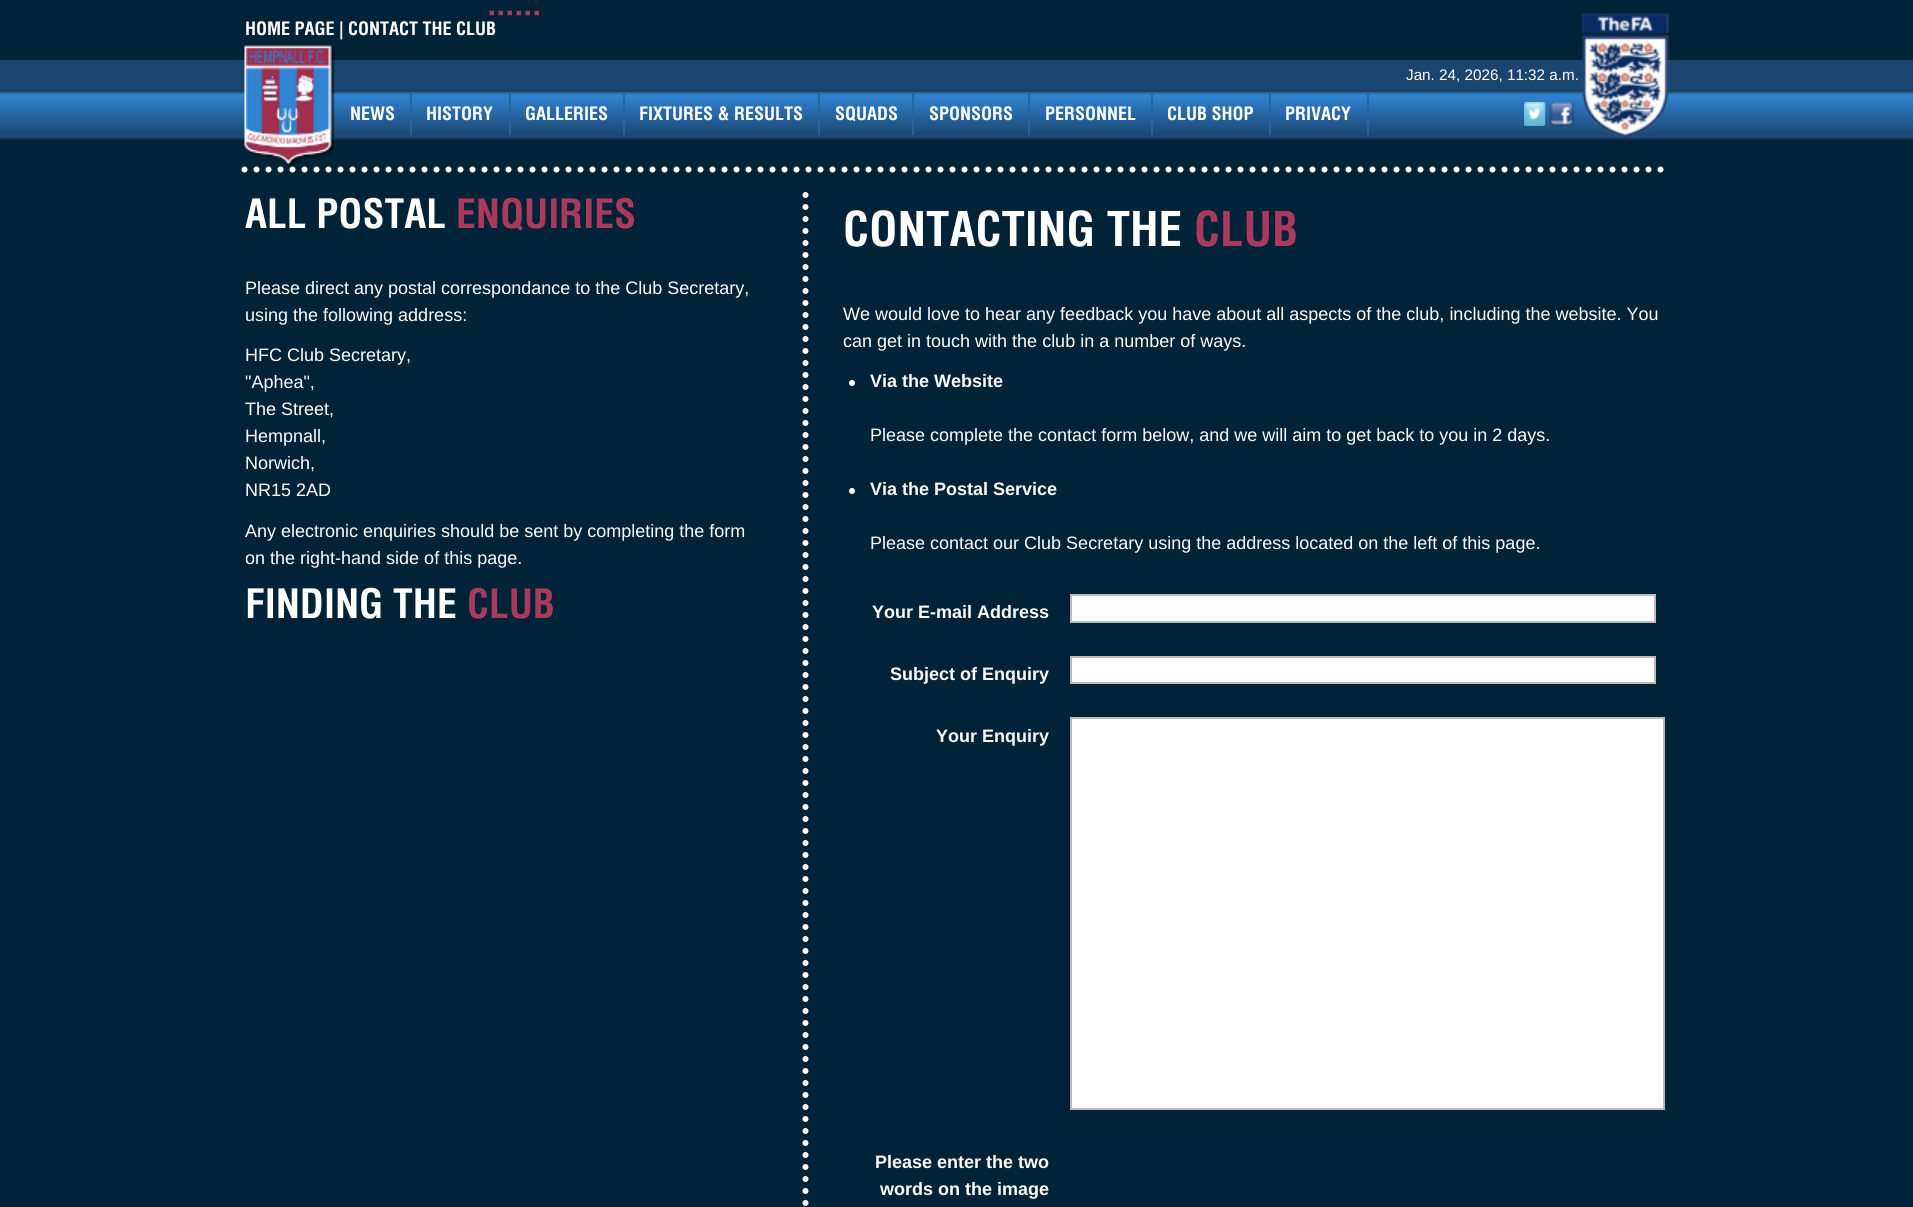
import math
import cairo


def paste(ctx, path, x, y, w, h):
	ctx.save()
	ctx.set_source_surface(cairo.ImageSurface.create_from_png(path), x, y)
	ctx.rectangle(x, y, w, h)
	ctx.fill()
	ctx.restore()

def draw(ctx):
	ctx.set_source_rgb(0, 0.137, 0.216)
	ctx.paint()
	ctx.select_font_face('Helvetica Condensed', cairo.FONT_SLANT_NORMAL, cairo.FONT_WEIGHT_BOLD)
	ctx.set_font_size(18)
	ctx.set_source_rgb(1, 1, 1)
	ctx.move_to(245, 35)
	ctx.show_text('HOME PAGE | CONTACT THE CLUB')
	ctx.new_path()
	ctx.move_to(489.5, 13)
	ctx.line_to(542.5, 13)
	ctx.set_source_rgb(0.663, 0.224, 0.365)
	ctx.set_line_width(4.5)
	ctx.set_dash([4.5, 4.5])
	ctx.stroke()
	ctx.set_source_rgb(0.102, 0.271, 0.435)
	ctx.rectangle(0, 60, 1913, 30)
	ctx.fill()
	ctx.set_source_rgb(0.102, 0.255, 0.416)
	ctx.rectangle(0, 90, 1913, 2)
	ctx.fill()
	ctx.set_source_rgb(0.118, 0.29, 0.467)
	ctx.rectangle(0, 132, 1913, 6)
	ctx.fill()
	paste(ctx, 'media/5.png', 0, 94, 1913, 38)
	ctx.set_source_rgb(0.153, 0.396, 0.627)
	ctx.rectangle(0, 92, 1913, 2)
	ctx.fill()
	paste(ctx, 'media/1.png', 1581, 13, 89, 125)
	ctx.set_source_rgb(0.063, 0.192, 0.314)
	ctx.rectangle(0, 138, 1913, 2)
	ctx.fill()
	ctx.new_path()
	ctx.move_to(244.5, 169.5)
	ctx.line_to(1669.5, 169.5)
	ctx.set_source_rgb(1, 1, 1)
	ctx.set_line_width(6)
	ctx.set_line_cap(cairo.LINE_CAP_ROUND)
	ctx.set_dash([0, 12])
	ctx.stroke()
	paste(ctx, 'media/2.png', 244, 45, 91, 122)
	paste(ctx, 'media/3.png', 1524, 102, 22, 24)
	paste(ctx, 'media/4.png', 1549, 102, 25, 24)
	ctx.select_font_face('Liberation Sans')
	ctx.set_font_size(15.25)
	ctx.move_to(1406, 80)
	ctx.show_text('Jan. 24, 2026, 11:32 a.m.')
	ctx.set_source_rgb(0.145, 0.4, 0.627)
	ctx.rectangle(410, 93, 2, 42)
	ctx.fill()
	ctx.select_font_face('Helvetica Condensed', cairo.FONT_SLANT_NORMAL, cairo.FONT_WEIGHT_BOLD)
	ctx.set_font_size(18)
	ctx.set_source_rgb(1, 1, 1)
	ctx.move_to(350, 120)
	ctx.show_text('NEWS')
	ctx.set_source_rgb(0.145, 0.4, 0.627)
	ctx.rectangle(509, 93, 2, 42)
	ctx.fill()
	ctx.set_source_rgb(1, 1, 1)
	ctx.move_to(426, 120)
	ctx.show_text('HISTORY')
	ctx.set_source_rgb(0.145, 0.4, 0.627)
	ctx.rectangle(623, 93, 2, 42)
	ctx.fill()
	ctx.set_source_rgb(1, 1, 1)
	ctx.move_to(525, 120)
	ctx.show_text('GALLERIES')
	ctx.set_source_rgb(0.145, 0.4, 0.627)
	ctx.rectangle(818, 93, 2, 42)
	ctx.fill()
	ctx.set_source_rgb(1, 1, 1)
	ctx.move_to(639, 120)
	ctx.show_text('FIXTURES & RESULTS')
	ctx.set_source_rgb(0.145, 0.4, 0.627)
	ctx.rectangle(912, 93, 2, 42)
	ctx.fill()
	ctx.set_source_rgb(1, 1, 1)
	ctx.move_to(835, 120)
	ctx.show_text('SQUADS')
	ctx.set_source_rgb(0.145, 0.4, 0.627)
	ctx.rectangle(1028, 93, 2, 42)
	ctx.fill()
	ctx.set_source_rgb(1, 1, 1)
	ctx.move_to(929, 120)
	ctx.show_text('SPONSORS')
	ctx.set_source_rgb(0.145, 0.4, 0.627)
	ctx.rectangle(1151, 93, 2, 42)
	ctx.fill()
	ctx.set_source_rgb(1, 1, 1)
	ctx.move_to(1045, 120)
	ctx.show_text('PERSONNEL')
	ctx.set_source_rgb(0.145, 0.4, 0.627)
	ctx.rectangle(1269, 93, 2, 42)
	ctx.fill()
	ctx.set_source_rgb(1, 1, 1)
	ctx.move_to(1167, 120)
	ctx.show_text('CLUB SHOP')
	ctx.set_source_rgb(0.145, 0.4, 0.627)
	ctx.rectangle(1367, 93, 2, 42)
	ctx.fill()
	ctx.set_source_rgb(1, 1, 1)
	ctx.move_to(1285, 120)
	ctx.show_text('PRIVACY')
	ctx.new_path()
	ctx.move_to(805.5, 195)
	ctx.line_to(805.5, 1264.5)
	ctx.stroke()
	ctx.set_font_size(39.5)
	ctx.move_to(245, 228)
	ctx.show_text('ALL POSTAL')
	ctx.set_source_rgb(0.663, 0.224, 0.365)
	ctx.move_to(456, 228)
	ctx.show_text('ENQUIRIES')
	ctx.select_font_face('Liberation Sans')
	ctx.set_font_size(18)
	ctx.set_source_rgb(1, 1, 1)
	for x, y, s in [
		(245, 294, 'Please direct any postal correspondance to the Club Secretary,'),
		(245, 321, 'using the following address:'),
		(245, 361, 'HFC Club Secretary,'),
		(245, 388, '"Aphea",'),
		(245, 415, 'The Street,'),
		(245, 442, 'Hempnall,'),
		(245, 469, 'Norwich,'),
		(245, 496, 'NR15 2AD'),
		(245, 537, 'Any electronic enquiries should be sent by completing the form'),
		(245, 564, 'on the right-hand side of this page.'),
	]:
		ctx.move_to(x, y)
		ctx.show_text(s)
	ctx.select_font_face('Helvetica Condensed', cairo.FONT_SLANT_NORMAL, cairo.FONT_WEIGHT_BOLD)
	ctx.set_font_size(39.5)
	ctx.move_to(245, 618)
	ctx.show_text('FINDING THE')
	ctx.set_source_rgb(0.663, 0.224, 0.365)
	ctx.move_to(467, 618)
	ctx.show_text('CLUB')
	ctx.set_font_size(46.75)
	ctx.set_source_rgb(1, 1, 1)
	ctx.move_to(843, 246)
	ctx.show_text('CONTACTING THE')
	ctx.set_source_rgb(0.663, 0.224, 0.365)
	ctx.move_to(1194, 246)
	ctx.show_text('CLUB')
	ctx.select_font_face('Liberation Sans')
	ctx.set_font_size(18)
	ctx.set_source_rgb(1, 1, 1)
	ctx.move_to(843, 320)
	ctx.show_text('We would love to hear any feedback you have about all aspects of the club, including the website. You')
	ctx.move_to(843, 347)
	ctx.show_text('can get in touch with the club in a number of ways.')
	ctx.new_path()
	ctx.arc(852, 383, 3, 0, 2 * math.pi)
	ctx.fill()
	ctx.select_font_face('Liberation Sans', cairo.FONT_SLANT_NORMAL, cairo.FONT_WEIGHT_BOLD)
	ctx.move_to(870, 387)
	ctx.show_text('Via the Website')
	ctx.select_font_face('Liberation Sans')
	ctx.move_to(870, 441)
	ctx.show_text('Please complete the contact form below, and we will aim to get back to you in 2 days.')
	ctx.new_path()
	ctx.arc(852, 491, 3, 0, 2 * math.pi)
	ctx.fill()
	ctx.select_font_face('Liberation Sans', cairo.FONT_SLANT_NORMAL, cairo.FONT_WEIGHT_BOLD)
	ctx.move_to(870, 495)
	ctx.show_text('Via the Postal Service')
	ctx.select_font_face('Liberation Sans')
	ctx.move_to(870, 549)
	ctx.show_text('Please contact our Club Secretary using the address located on the left of this page.')
	ctx.select_font_face('Liberation Sans', cairo.FONT_SLANT_NORMAL, cairo.FONT_WEIGHT_BOLD)
	ctx.move_to(872, 618)
	ctx.show_text('Your E-mail Address')
	ctx.rectangle(1071, 595, 584, 27)
	ctx.fill_preserve()
	ctx.set_source_rgb(0.733, 0.733, 0.733)
	ctx.set_line_width(2)
	ctx.set_line_cap(cairo.LINE_CAP_BUTT)
	ctx.set_dash([])
	ctx.stroke()
	ctx.set_source_rgb(1, 1, 1)
	ctx.move_to(890, 680)
	ctx.show_text('Subject of Enquiry')
	ctx.rectangle(1071, 657, 584, 26)
	ctx.fill_preserve()
	ctx.set_source_rgb(0.733, 0.733, 0.733)
	ctx.stroke()
	ctx.set_source_rgb(1, 1, 1)
	ctx.move_to(936, 742)
	ctx.show_text('Your Enquiry')
	ctx.rectangle(1071, 718, 593, 391)
	ctx.fill_preserve()
	ctx.set_source_rgb(0.733, 0.733, 0.733)
	ctx.stroke()
	ctx.set_source_rgb(1, 1, 1)
	ctx.move_to(875, 1168)
	ctx.show_text('Please enter the two')
	ctx.move_to(880, 1195)
	ctx.show_text('words on the image')


surface = cairo.ImageSurface(cairo.FORMAT_RGB24, 1913, 1207)
ctx = cairo.Context(surface)
options = cairo.FontOptions()
options.set_hint_metrics(cairo.HINT_METRICS_OFF)
options.set_hint_style(cairo.HINT_STYLE_NONE)
ctx.set_font_options(options)
ctx.set_miter_limit(4)
draw(ctx)
surface.write_to_png('image.png')
